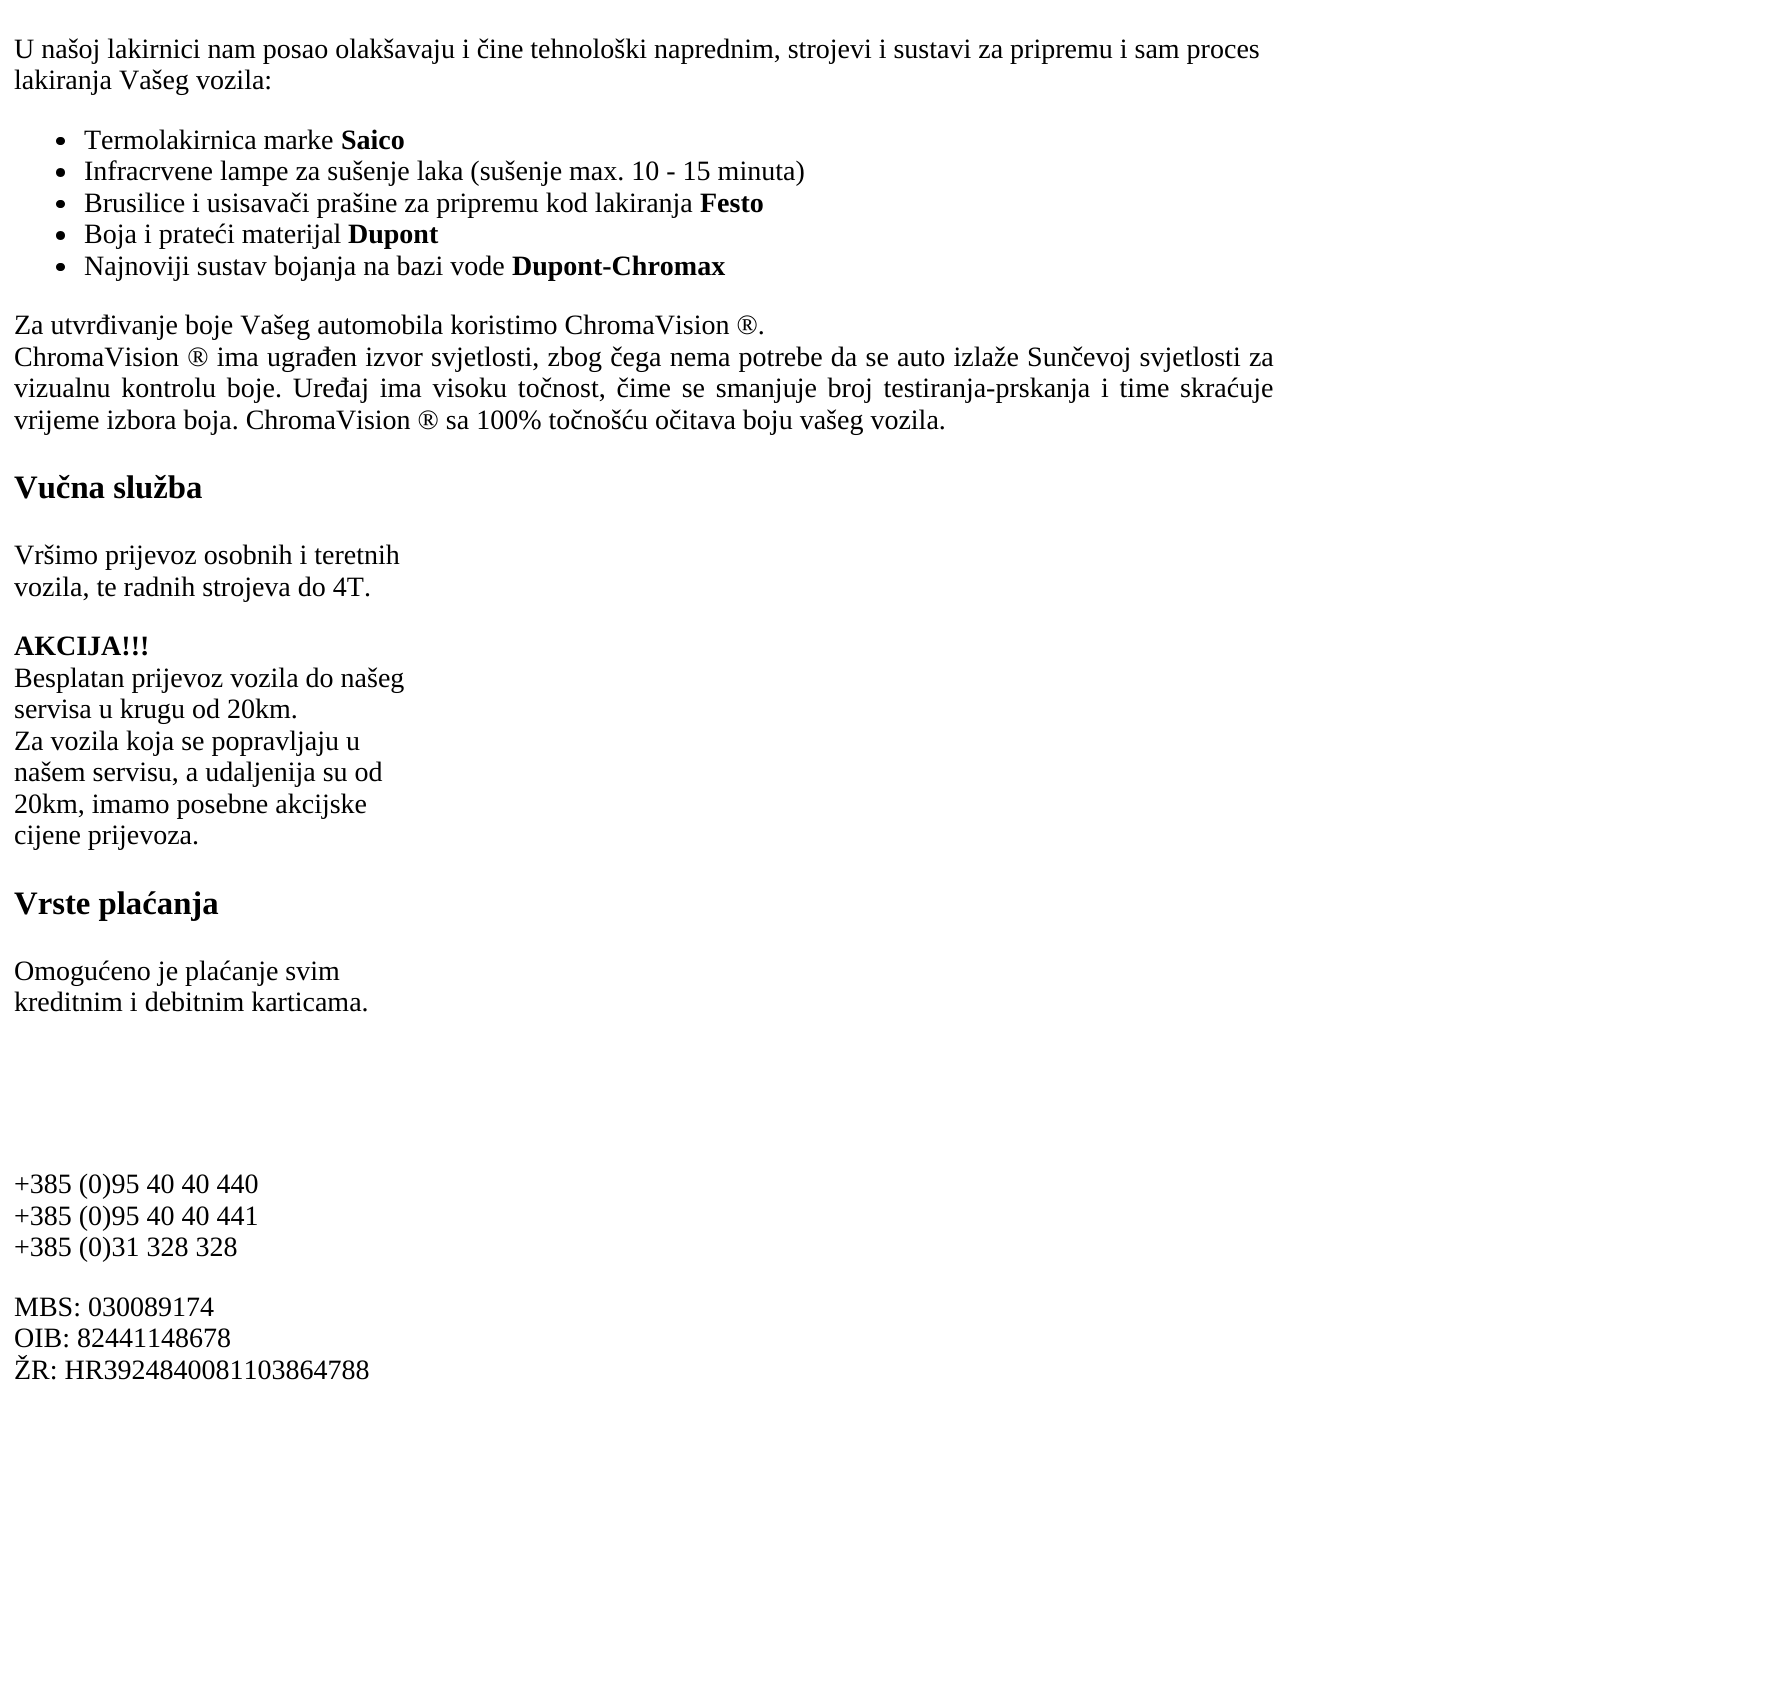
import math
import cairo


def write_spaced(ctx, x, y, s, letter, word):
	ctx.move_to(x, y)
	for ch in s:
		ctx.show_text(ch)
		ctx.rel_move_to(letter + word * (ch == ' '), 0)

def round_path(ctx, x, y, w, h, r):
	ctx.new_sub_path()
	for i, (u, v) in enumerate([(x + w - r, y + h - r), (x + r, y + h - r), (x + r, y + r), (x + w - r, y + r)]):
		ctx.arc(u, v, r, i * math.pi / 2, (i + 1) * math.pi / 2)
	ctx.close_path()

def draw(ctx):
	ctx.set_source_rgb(1, 1, 1)
	ctx.paint()
	ctx.select_font_face('Liberation Serif')
	ctx.set_font_size(28)
	ctx.set_source_rgb(0, 0, 0)
	ctx.move_to(14, 58)
	ctx.show_text('U našoj lakirnici nam posao olakšavaju i čine tehnološki naprednim, strojevi i sustavi za pripremu i sam proces')
	ctx.move_to(14, 89)
	ctx.show_text('lakiranja Vašeg vozila:')
	round_path(ctx, 56, 137, 9, 8, 4)
	ctx.fill()
	ctx.move_to(84, 149)
	ctx.show_text('Termolakirnica marke')
	ctx.select_font_face('Liberation Serif', cairo.FONT_SLANT_NORMAL, cairo.FONT_WEIGHT_BOLD)
	ctx.move_to(341, 149)
	ctx.show_text('Saico')
	ctx.new_path()
	ctx.arc(60.5, 172.5, 4.5, 0, 2 * math.pi)
	ctx.fill()
	ctx.select_font_face('Liberation Serif')
	ctx.move_to(84, 180)
	ctx.show_text('Infracrvene lampe za sušenje laka (sušenje max. 10 - 15 minuta)')
	round_path(ctx, 56, 200, 9, 8, 4)
	ctx.fill()
	ctx.move_to(84, 212)
	ctx.show_text('Brusilice i usisavači prašine za pripremu kod lakiranja')
	ctx.select_font_face('Liberation Serif', cairo.FONT_SLANT_NORMAL, cairo.FONT_WEIGHT_BOLD)
	ctx.move_to(700, 212)
	ctx.show_text('Festo')
	ctx.new_path()
	ctx.arc(60.5, 235.5, 4.5, 0, 2 * math.pi)
	ctx.fill()
	ctx.select_font_face('Liberation Serif')
	ctx.move_to(84, 243)
	ctx.show_text('Boja i prateći materijal')
	ctx.select_font_face('Liberation Serif', cairo.FONT_SLANT_NORMAL, cairo.FONT_WEIGHT_BOLD)
	ctx.move_to(348, 243)
	ctx.show_text('Dupont')
	round_path(ctx, 56, 263, 9, 8, 4)
	ctx.fill()
	ctx.select_font_face('Liberation Serif')
	ctx.move_to(84, 275)
	ctx.show_text('Najnoviji sustav bojanja na bazi vode')
	ctx.select_font_face('Liberation Serif', cairo.FONT_SLANT_NORMAL, cairo.FONT_WEIGHT_BOLD)
	ctx.move_to(512, 275)
	ctx.show_text('Dupont-Chromax')
	ctx.select_font_face('Liberation Serif')
	ctx.move_to(14, 334)
	ctx.show_text('Za utvrđivanje boje Vašeg automobila koristimo ChromaVision ®.')
	write_spaced(ctx, 14, 366, 'ChromaVision ® ima ugrađen izvor svjetlosti, zbog čega nema potrebe da se auto izlaže Sunčevoj svjetlosti za', 0, 1.25)
	write_spaced(ctx, 14, 397, 'vizualnu kontrolu boje. Uređaj ima visoku točnost, čime se smanjuje broj testiranja-prskanja i time skraćuje', 0, 3.75)
	ctx.move_to(14, 429)
	ctx.show_text('vrijeme izbora boja. ChromaVision ® sa 100% točnošću očitava boju vašeg vozila.')
	ctx.select_font_face('Liberation Serif', cairo.FONT_SLANT_NORMAL, cairo.FONT_WEIGHT_BOLD)
	ctx.set_font_size(32.75)
	ctx.move_to(14, 498)
	ctx.show_text('Vučna služba')
	ctx.select_font_face('Liberation Serif')
	ctx.set_font_size(28)
	ctx.move_to(14, 564)
	ctx.show_text('Vršimo prijevoz osobnih i teretnih')
	ctx.move_to(14, 596)
	ctx.show_text('vozila, te radnih strojeva do 4T.')
	ctx.select_font_face('Liberation Serif', cairo.FONT_SLANT_NORMAL, cairo.FONT_WEIGHT_BOLD)
	ctx.move_to(14, 655)
	ctx.show_text('AKCIJA!!!')
	ctx.select_font_face('Liberation Serif')
	for x, y, s in [
		(14, 687, 'Besplatan prijevoz vozila do našeg'),
		(14, 718, 'servisa u krugu od 20km.'),
		(14, 750, 'Za vozila koja se popravljaju u'),
		(14, 781, 'našem servisu, a udaljenija su od'),
		(14, 813, '20km, imamo posebne akcijske'),
		(14, 844, 'cijene prijevoza.'),
	]:
		ctx.move_to(x, y)
		ctx.show_text(s)
	ctx.select_font_face('Liberation Serif', cairo.FONT_SLANT_NORMAL, cairo.FONT_WEIGHT_BOLD)
	ctx.set_font_size(32.75)
	ctx.move_to(14, 914)
	ctx.show_text('Vrste plaćanja')
	ctx.select_font_face('Liberation Serif')
	ctx.set_font_size(28)
	for x, y, s in [
		(14, 980, 'Omogućeno je plaćanje svim'),
		(14, 1011, 'kreditnim i debitnim karticama.'),
		(14, 1193, '+385 (0)95 40 40 440'),
		(14, 1225, '+385 (0)95 40 40 441'),
		(14, 1256, '+385 (0)31 328 328'),
		(14, 1316, 'MBS: 030089174'),
		(14, 1347, 'OIB: 82441148678'),
		(14, 1379, 'ŽR: HR3924840081103864788'),
	]:
		ctx.move_to(x, y)
		ctx.show_text(s)


surface = cairo.ImageSurface(cairo.FORMAT_RGB24, 1770, 1681)
ctx = cairo.Context(surface)
options = cairo.FontOptions()
options.set_hint_metrics(cairo.HINT_METRICS_OFF)
options.set_hint_style(cairo.HINT_STYLE_NONE)
ctx.set_font_options(options)
ctx.set_miter_limit(4)
draw(ctx)
surface.write_to_png('image.png')
